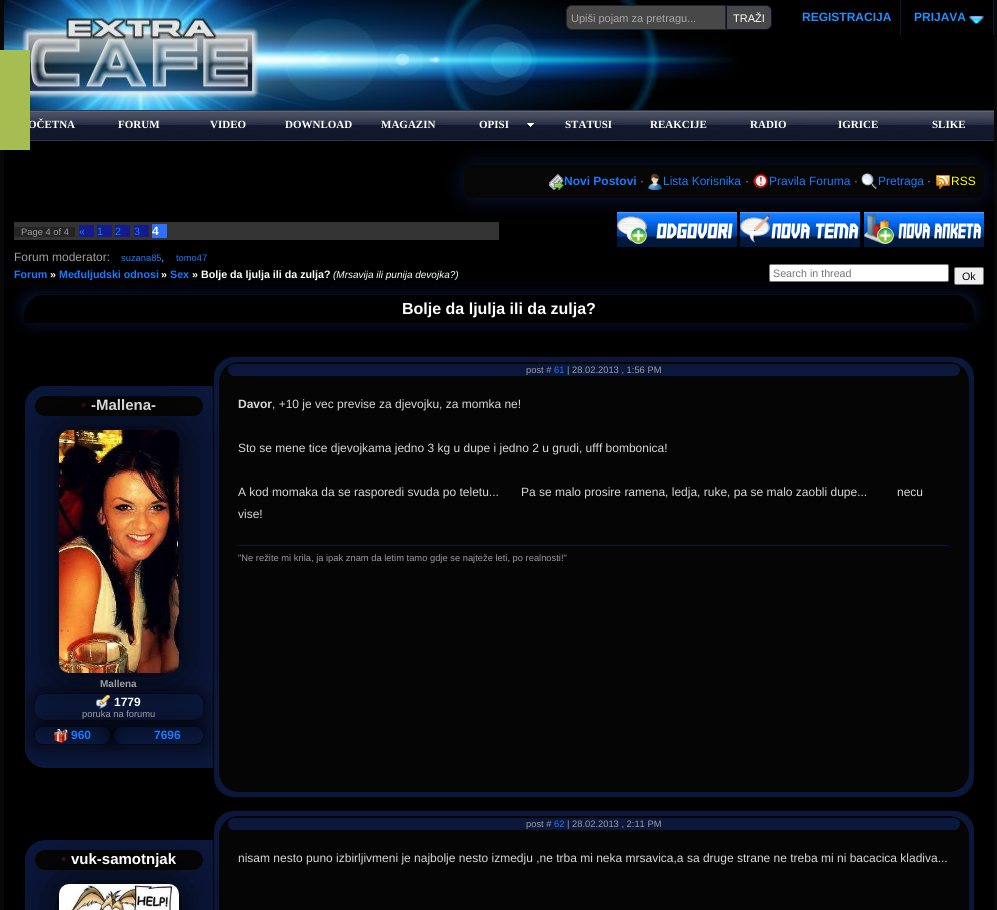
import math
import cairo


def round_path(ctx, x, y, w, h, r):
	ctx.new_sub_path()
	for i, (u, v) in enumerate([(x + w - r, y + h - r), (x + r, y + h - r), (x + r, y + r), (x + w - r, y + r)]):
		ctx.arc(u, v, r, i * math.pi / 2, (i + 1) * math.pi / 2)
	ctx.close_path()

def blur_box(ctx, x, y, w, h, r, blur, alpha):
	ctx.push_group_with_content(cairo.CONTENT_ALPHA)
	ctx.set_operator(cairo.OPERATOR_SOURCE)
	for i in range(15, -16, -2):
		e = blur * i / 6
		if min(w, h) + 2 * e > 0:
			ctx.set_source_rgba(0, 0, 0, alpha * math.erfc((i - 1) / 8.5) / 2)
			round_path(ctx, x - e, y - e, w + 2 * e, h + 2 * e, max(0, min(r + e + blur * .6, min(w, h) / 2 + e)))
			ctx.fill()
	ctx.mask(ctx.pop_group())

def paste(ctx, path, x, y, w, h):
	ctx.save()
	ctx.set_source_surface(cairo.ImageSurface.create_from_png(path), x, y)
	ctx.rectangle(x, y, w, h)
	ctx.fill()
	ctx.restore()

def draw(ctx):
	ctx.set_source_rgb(0.035, 0.035, 0.035)
	ctx.paint()
	paste(ctx, 'media/1.png', 4, 0, 990, 110)
	paste(ctx, 'media/3.png', 30, 110, 64, 31)
	ctx.select_font_face('Liberation Serif', cairo.FONT_SLANT_NORMAL, cairo.FONT_WEIGHT_BOLD)
	ctx.set_font_size(11)
	ctx.set_source_rgb(1, 1, 1)
	ctx.move_to(28, 128)
	ctx.show_text('OČETNA')
	ctx.set_source_rgb(0, 0, 0)
	ctx.rectangle(4, 141, 990, 769)
	ctx.fill()
	ctx.set_source_rgb(0.647, 0.741, 0.318)
	ctx.rectangle(0, 50, 30, 100)
	ctx.fill()
	ctx.set_source_rgb(0.282, 0.282, 0.282)
	ctx.new_path()
	ctx.move_to(572, 5.5)
	ctx.line_to(725.5, 5.5)
	ctx.line_to(725.5, 29.5)
	ctx.line_to(572, 29.5)
	ctx.curve_to(569, 29.5, 566.5, 27, 566.5, 24)
	ctx.line_to(566.5, 11)
	ctx.curve_to(566.5, 8, 569, 5.5, 572, 5.5)
	ctx.close_path()
	ctx.fill_preserve()
	ctx.set_source_rgb(0.145, 0.145, 0.145)
	ctx.set_line_width(1)
	ctx.stroke()
	ctx.save()
	ctx.rectangle(571, 12, 150, 12)
	ctx.clip()
	ctx.select_font_face('Liberation Sans')
	ctx.set_source_rgb(0.655, 0.655, 0.655)
	ctx.move_to(571, 22)
	ctx.show_text('Upiši pojam za pretragu...')
	ctx.restore()
	ctx.set_source_rgb(0.282, 0.282, 0.282)
	ctx.new_path()
	ctx.move_to(726.5, 5.5)
	ctx.line_to(766, 5.5)
	ctx.curve_to(769, 5.5, 771.5, 8, 771.5, 11)
	ctx.line_to(771.5, 24)
	ctx.curve_to(771.5, 27, 769, 29.5, 766, 29.5)
	ctx.line_to(726.5, 29.5)
	ctx.close_path()
	ctx.fill_preserve()
	ctx.set_source_rgb(0.047, 0.071, 0.231)
	ctx.stroke()
	ctx.select_font_face('Liberation Sans')
	ctx.set_source_rgb(1, 1, 1)
	ctx.move_to(733, 22)
	ctx.show_text('TRAŽI')
	ctx.set_source_rgb(0.043, 0.09, 0.231)
	ctx.rectangle(900, 0, 1, 35)
	ctx.fill()
	ctx.select_font_face('Liberation Sans', cairo.FONT_SLANT_NORMAL, cairo.FONT_WEIGHT_BOLD)
	ctx.set_font_size(12)
	ctx.set_source_rgb(0.118, 0.565, 1)
	ctx.move_to(802, 21)
	ctx.show_text('REGISTRACIJA')
	ctx.set_source_rgb(0.043, 0.09, 0.231)
	ctx.rectangle(993, 0, 1, 35)
	ctx.fill()
	paste(ctx, 'media/2.png', 969, 15, 15, 9)
	ctx.set_source_rgb(0.118, 0.565, 1)
	ctx.move_to(914, 21)
	ctx.show_text('PRIJAVA')
	paste(ctx, 'media/4.png', 94, 110, 90, 31)
	ctx.select_font_face('Liberation Serif', cairo.FONT_SLANT_NORMAL, cairo.FONT_WEIGHT_BOLD)
	ctx.set_font_size(11)
	ctx.set_source_rgb(1, 1, 1)
	ctx.move_to(118, 128)
	ctx.show_text('FORUM')
	paste(ctx, 'media/4.png', 184, 110, 90, 31)
	ctx.move_to(210, 128)
	ctx.show_text('VIDEO')
	paste(ctx, 'media/4.png', 274, 110, 90, 31)
	ctx.move_to(285, 128)
	ctx.show_text('DOWNLOAD')
	ctx.set_source_rgb(0.043, 0.09, 0.231)
	blur_box(ctx, 464, 165, 520, 33, 10, 10, 1)
	paste(ctx, 'media/4.png', 364, 110, 90, 31)
	ctx.set_source_rgb(1, 1, 1)
	ctx.move_to(381, 128)
	ctx.show_text('MAGAZIN')
	paste(ctx, 'media/4.png', 454, 110, 90, 31)
	paste(ctx, 'media/5.png', 527, 123, 7, 4)
	ctx.move_to(479, 128)
	ctx.show_text('OPISI')
	paste(ctx, 'media/4.png', 544, 110, 90, 31)
	ctx.move_to(565, 128)
	ctx.show_text('STATUSI')
	paste(ctx, 'media/4.png', 634, 110, 90, 31)
	ctx.move_to(650, 128)
	ctx.show_text('REAKCIJE')
	paste(ctx, 'media/4.png', 724, 110, 90, 31)
	ctx.move_to(750, 128)
	ctx.show_text('RADIO')
	paste(ctx, 'media/4.png', 814, 110, 90, 31)
	ctx.move_to(838, 128)
	ctx.show_text('IGRICE')
	paste(ctx, 'media/4.png', 904, 110, 90, 31)
	ctx.move_to(932, 128)
	ctx.show_text('SLIKE')
	ctx.set_source_rgb(0.027, 0.027, 0.027)
	round_path(ctx, 464, 165, 520, 33, 10)
	ctx.fill()
	paste(ctx, 'media/6.png', 549, 174, 15, 16)
	ctx.select_font_face('Liberation Sans', cairo.FONT_SLANT_NORMAL, cairo.FONT_WEIGHT_BOLD)
	ctx.set_font_size(12)
	ctx.set_source_rgb(0.086, 0.482, 1)
	ctx.move_to(564, 185)
	ctx.show_text('Novi Postovi')
	ctx.select_font_face('Liberation Sans')
	ctx.set_source_rgb(0.624, 0.624, 0.624)
	ctx.move_to(640, 185)
	ctx.show_text('·')
	paste(ctx, 'media/7.png', 648, 174, 14, 16)
	ctx.set_source_rgb(0.086, 0.482, 1)
	ctx.move_to(663, 185)
	ctx.show_text('Lista Korisnika')
	ctx.set_source_rgb(0.624, 0.624, 0.624)
	ctx.move_to(745, 185)
	ctx.show_text('·')
	paste(ctx, 'media/8.png', 753, 174, 16, 15)
	ctx.set_source_rgb(0.086, 0.482, 1)
	ctx.move_to(769, 185)
	ctx.show_text('Pravila Foruma')
	ctx.set_source_rgb(0.624, 0.624, 0.624)
	ctx.move_to(854, 185)
	ctx.show_text('·')
	paste(ctx, 'media/9.png', 861, 173, 17, 17)
	ctx.set_source_rgb(0.086, 0.482, 1)
	ctx.move_to(878, 185)
	ctx.show_text('Pretraga')
	ctx.set_source_rgb(0.624, 0.624, 0.624)
	ctx.move_to(927, 185)
	ctx.show_text('·')
	paste(ctx, 'media/10.png', 936, 175, 14, 14)
	ctx.set_source_rgb(1, 1, 0)
	ctx.move_to(951, 185)
	ctx.show_text('RSS')
	ctx.set_source_rgb(0.2, 0.2, 0.2)
	ctx.rectangle(14, 222, 485, 18)
	ctx.fill()
	ctx.set_source_rgb(0.141, 0.141, 0.141)
	ctx.rectangle(14, 227, 61, 10)
	ctx.fill()
	ctx.set_font_size(9.35)
	ctx.set_source_rgb(0.624, 0.624, 0.624)
	ctx.move_to(21, 235)
	ctx.show_text('Page 4 of 4')
	ctx.set_source_rgb(0.082, 0.106, 0.553)
	ctx.rectangle(79, 225, 15, 12)
	ctx.fill()
	ctx.set_font_size(10.7)
	ctx.set_source_rgb(0.086, 0.482, 1)
	ctx.move_to(79, 235)
	ctx.show_text('«')
	ctx.set_source_rgb(0.082, 0.106, 0.553)
	ctx.rectangle(97, 225, 15, 12)
	ctx.fill()
	ctx.set_source_rgb(0.086, 0.482, 1)
	ctx.move_to(97, 235)
	ctx.show_text('1')
	ctx.set_source_rgb(0.082, 0.106, 0.553)
	ctx.rectangle(115, 225, 15, 12)
	ctx.fill()
	ctx.set_source_rgb(0.086, 0.482, 1)
	ctx.move_to(115, 235)
	ctx.show_text('2')
	ctx.set_source_rgb(0.082, 0.106, 0.553)
	ctx.rectangle(134, 225, 15, 12)
	ctx.fill()
	ctx.set_source_rgb(0.086, 0.482, 1)
	ctx.move_to(134, 235)
	ctx.show_text('3')
	ctx.set_source_rgb(0.188, 0.431, 1)
	ctx.rectangle(152, 224, 15, 14)
	ctx.fill()
	ctx.select_font_face('Liberation Sans', cairo.FONT_SLANT_NORMAL, cairo.FONT_WEIGHT_BOLD)
	ctx.set_font_size(12)
	ctx.set_source_rgb(1, 1, 1)
	ctx.move_to(152, 235)
	ctx.show_text('4')
	paste(ctx, 'media/11.png', 617, 212, 120, 35)
	paste(ctx, 'media/12.png', 740, 212, 120, 35)
	paste(ctx, 'media/13.png', 864, 212, 120, 35)
	ctx.select_font_face('Liberation Sans')
	ctx.set_source_rgb(0.624, 0.624, 0.624)
	ctx.move_to(14, 261)
	ctx.show_text('Forum moderator:')
	ctx.set_font_size(9.35)
	ctx.set_source_rgb(0.086, 0.482, 1)
	ctx.move_to(121, 261)
	ctx.show_text('suzana85')
	ctx.set_font_size(12)
	ctx.set_source_rgb(0.624, 0.624, 0.624)
	ctx.move_to(161, 261)
	ctx.show_text(',')
	ctx.set_font_size(9.35)
	ctx.set_source_rgb(0.086, 0.482, 1)
	ctx.move_to(176, 261)
	ctx.show_text('tomo47')
	ctx.set_source_rgb(0.043, 0.09, 0.231)
	blur_box(ctx, 24, 295, 950, 28, 20, 7.5, 1)
	ctx.select_font_face('Liberation Sans', cairo.FONT_SLANT_NORMAL, cairo.FONT_WEIGHT_BOLD)
	ctx.set_font_size(10.7)
	ctx.set_source_rgb(0.086, 0.482, 1)
	ctx.move_to(14, 278)
	ctx.show_text('Forum')
	ctx.set_source_rgb(1, 1, 1)
	ctx.move_to(50, 278)
	ctx.show_text('»')
	ctx.set_source_rgb(0.086, 0.482, 1)
	ctx.move_to(59, 278)
	ctx.show_text('Međuljudski odnosi')
	ctx.set_source_rgb(1, 1, 1)
	ctx.move_to(161, 278)
	ctx.show_text('»')
	ctx.set_source_rgb(0.086, 0.482, 1)
	ctx.move_to(170, 278)
	ctx.show_text('Sex')
	ctx.set_source_rgb(1, 1, 1)
	ctx.move_to(192, 278)
	ctx.show_text('» Bolje da ljulja ili da zulja?')
	ctx.select_font_face('Liberation Sans', cairo.FONT_SLANT_ITALIC)
	ctx.set_font_size(10)
	ctx.move_to(333, 278)
	ctx.show_text('(Mrsavija ili punija devojka?)')
	round_path(ctx, 769.5, 264.5, 179, 17, 1.5)
	ctx.fill_preserve()
	ctx.set_source_rgb(0.463, 0.463, 0.463)
	ctx.stroke()
	ctx.select_font_face('Liberation Sans')
	ctx.set_font_size(10.7)
	ctx.set_source_rgb(0.459, 0.459, 0.459)
	ctx.move_to(773, 277)
	ctx.show_text('Search in thread')
	ctx.set_source_rgb(0.937, 0.937, 0.937)
	round_path(ctx, 954.5, 267.5, 29, 17, 1.5)
	ctx.fill_preserve()
	ctx.set_source_rgb(0.463, 0.463, 0.463)
	ctx.stroke()
	ctx.set_source_rgb(0, 0, 0)
	ctx.move_to(962, 280)
	ctx.show_text('Ok')
	ctx.new_path()
	ctx.move_to(44, 295)
	ctx.line_to(954, 295)
	ctx.curve_to(965, 295, 974, 304, 974, 315)
	ctx.line_to(974, 323)
	ctx.line_to(24, 323)
	ctx.line_to(24, 315)
	ctx.curve_to(24, 304, 33, 295, 44, 295)
	ctx.close_path()
	ctx.fill()
	ctx.select_font_face('Liberation Sans', cairo.FONT_SLANT_NORMAL, cairo.FONT_WEIGHT_BOLD)
	ctx.set_font_size(16)
	ctx.set_source_rgb(1, 1, 1)
	ctx.move_to(402, 314)
	ctx.show_text('Bolje da ljulja ili da zulja?')
	ctx.set_source_rgb(0.043, 0.09, 0.231)
	ctx.new_path()
	ctx.move_to(45, 386)
	ctx.line_to(213, 386)
	ctx.line_to(213, 768)
	ctx.line_to(45, 768)
	ctx.curve_to(34, 768, 25, 759, 25, 748)
	ctx.line_to(25, 406)
	ctx.curve_to(25, 395, 34, 386, 45, 386)
	ctx.close_path()
	ctx.fill()
	ctx.set_source_rgb(0.02, 0.02, 0.02)
	round_path(ctx, 35, 396, 168, 20, 10)
	ctx.fill()
	ctx.set_font_size(15)
	ctx.set_source_rgb(0.231, 0.043, 0.09)
	ctx.move_to(81, 410)
	ctx.show_text('•')
	ctx.set_source_rgb(1, 1, 1)
	ctx.move_to(91, 410)
	ctx.show_text('-Mallena-')
	ctx.save()
	ctx.set_fill_rule(cairo.FILL_RULE_EVEN_ODD)
	ctx.new_path()
	ctx.move_to(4, 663)
	ctx.line_to(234, 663)
	ctx.line_to(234, 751)
	ctx.line_to(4, 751)
	ctx.close_path()
	ctx.move_to(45, 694)
	ctx.line_to(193, 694)
	ctx.curve_to(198.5, 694, 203, 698.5, 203, 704)
	ctx.line_to(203, 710)
	ctx.curve_to(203, 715.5, 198.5, 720, 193, 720)
	ctx.line_to(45, 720)
	ctx.curve_to(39.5, 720, 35, 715.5, 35, 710)
	ctx.line_to(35, 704)
	ctx.curve_to(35, 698.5, 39.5, 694, 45, 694)
	ctx.close_path()
	ctx.clip()
	ctx.set_source_rgb(0, 0, 0)
	blur_box(ctx, 35, 694, 168, 26, 10, 10, 1)
	ctx.restore()
	ctx.save()
	ctx.set_fill_rule(cairo.FILL_RULE_EVEN_ODD)
	ctx.new_path()
	ctx.move_to(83, 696)
	ctx.line_to(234, 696)
	ctx.line_to(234, 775)
	ctx.line_to(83, 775)
	ctx.close_path()
	ctx.move_to(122.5, 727)
	ctx.line_to(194.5, 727)
	ctx.curve_to(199, 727, 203, 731, 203, 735.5)
	ctx.curve_to(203, 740, 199, 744, 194.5, 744)
	ctx.line_to(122.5, 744)
	ctx.curve_to(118, 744, 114, 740, 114, 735.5)
	ctx.curve_to(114, 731, 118, 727, 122.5, 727)
	ctx.close_path()
	ctx.clip()
	ctx.set_source_rgb(0, 0, 0)
	blur_box(ctx, 114, 727, 89, 17, 8.5, 10, 1)
	ctx.restore()
	ctx.set_source_rgb(0.043, 0.09, 0.231)
	round_path(ctx, 214, 357, 760, 440, 20)
	ctx.fill()
	ctx.set_source_rgb(0.02, 0.02, 0.02)
	round_path(ctx, 219, 362, 750, 430, 20)
	ctx.fill()
	ctx.set_source_rgb(0.043, 0.09, 0.231)
	round_path(ctx, 228, 364, 732, 12, 6)
	ctx.fill()
	ctx.set_source_rgb(0, 0, 0)
	blur_box(ctx, 59, 430, 120, 243, 10, 25, 1)
	paste(ctx, 'media/14.png', 59, 430, 120, 243)
	ctx.set_font_size(10)
	ctx.set_source_rgb(0.624, 0.624, 0.624)
	ctx.move_to(100, 687)
	ctx.show_text('Mallena')
	ctx.save()
	ctx.set_fill_rule(cairo.FILL_RULE_EVEN_ODD)
	ctx.new_path()
	ctx.move_to(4, 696)
	ctx.line_to(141, 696)
	ctx.line_to(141, 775)
	ctx.line_to(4, 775)
	ctx.close_path()
	ctx.move_to(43.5, 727)
	ctx.line_to(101.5, 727)
	ctx.curve_to(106, 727, 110, 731, 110, 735.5)
	ctx.curve_to(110, 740, 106, 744, 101.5, 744)
	ctx.line_to(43.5, 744)
	ctx.curve_to(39, 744, 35, 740, 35, 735.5)
	ctx.curve_to(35, 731, 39, 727, 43.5, 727)
	ctx.close_path()
	ctx.clip()
	ctx.set_source_rgb(0, 0, 0)
	blur_box(ctx, 35, 727, 75, 17, 8.5, 10, 1)
	ctx.restore()
	paste(ctx, 'media/15.png', 96, 695, 14, 14)
	ctx.set_font_size(12)
	ctx.set_source_rgb(1, 1, 1)
	ctx.move_to(114, 706)
	ctx.show_text('1779')
	ctx.select_font_face('Liberation Sans')
	ctx.set_font_size(9.35)
	ctx.set_source_rgb(0.624, 0.624, 0.624)
	ctx.move_to(82, 717)
	ctx.show_text('poruka na forumu')
	paste(ctx, 'media/16.png', 54, 729, 14, 14)
	ctx.select_font_face('Liberation Sans', cairo.FONT_SLANT_NORMAL, cairo.FONT_WEIGHT_BOLD)
	ctx.set_font_size(12)
	ctx.set_source_rgb(0.086, 0.482, 1)
	ctx.move_to(71, 739)
	ctx.show_text('960')
	ctx.move_to(154, 739)
	ctx.show_text('7696')
	ctx.select_font_face('Liberation Sans')
	ctx.set_font_size(9.35)
	ctx.set_source_rgb(0.624, 0.624, 0.624)
	ctx.move_to(526, 373)
	ctx.show_text('post #')
	ctx.set_source_rgb(0.086, 0.482, 1)
	ctx.move_to(554, 373)
	ctx.show_text('61')
	ctx.set_source_rgb(0.624, 0.624, 0.624)
	ctx.move_to(567, 373)
	ctx.show_text('| 28.02.2013 , 1:56 PM')
	ctx.select_font_face('Liberation Sans', cairo.FONT_SLANT_NORMAL, cairo.FONT_WEIGHT_BOLD)
	ctx.set_font_size(12)
	ctx.set_source_rgb(0.847, 0.847, 0.847)
	ctx.move_to(238, 408)
	ctx.show_text('Davor')
	ctx.select_font_face('Liberation Sans')
	for x, y, s in [
		(272, 408, ', +10 je vec previse za djevojku, za momka ne!'),
		(238, 452, 'Sto se mene tice djevojkama jedno 3 kg u dupe i jedno 2 u grudi, ufff bombonica!'),
		(238, 496, 'A kod momaka da se rasporedi svuda po teletu...'),
		(521, 496, 'Pa se malo prosire ramena, ledja, ruke, pa se malo zaobli dupe...'),
		(897, 496, 'necu'),
		(238, 518, 'vise!'),
	]:
		ctx.move_to(x, y)
		ctx.show_text(s)
	ctx.set_source_rgb(0.043, 0.09, 0.231)
	ctx.rectangle(238, 545, 712, 1)
	ctx.fill()
	ctx.set_font_size(9.35)
	ctx.set_source_rgb(0.6, 0.6, 0.6)
	ctx.move_to(238, 561)
	ctx.show_text('"Ne režite mi krila, ja ipak znam da letim tamo gdje se najteže leti, po realnosti!"')
	ctx.set_source_rgb(0.043, 0.09, 0.231)
	ctx.new_path()
	ctx.move_to(45, 840)
	ctx.line_to(213, 840)
	ctx.line_to(213, 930)
	ctx.line_to(45, 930)
	ctx.curve_to(34, 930, 25, 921, 25, 910)
	ctx.line_to(25, 860)
	ctx.curve_to(25, 849, 34, 840, 45, 840)
	ctx.close_path()
	ctx.fill()
	ctx.set_source_rgb(0.02, 0.02, 0.02)
	round_path(ctx, 35, 850, 168, 20, 10)
	ctx.fill()
	ctx.set_source_rgb(0.043, 0.09, 0.231)
	round_path(ctx, 214, 811, 760, 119, 20)
	ctx.fill()
	ctx.set_source_rgb(0.02, 0.02, 0.02)
	round_path(ctx, 219, 816, 750, 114, 20)
	ctx.fill()
	ctx.set_source_rgb(0.043, 0.09, 0.231)
	round_path(ctx, 228, 818, 732, 12, 6)
	ctx.fill()
	ctx.set_source_rgb(0, 0, 0)
	blur_box(ctx, 59, 884, 120, 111, 10, 25, 1)
	ctx.select_font_face('Liberation Sans', cairo.FONT_SLANT_NORMAL, cairo.FONT_WEIGHT_BOLD)
	ctx.set_font_size(15)
	ctx.set_source_rgb(0.231, 0.043, 0.09)
	ctx.move_to(61, 864)
	ctx.show_text('•')
	ctx.set_source_rgb(1, 1, 1)
	ctx.move_to(71, 864)
	ctx.show_text('vuk-samotnjak')
	paste(ctx, 'media/17.png', 59, 884, 120, 26)
	ctx.select_font_face('Liberation Sans')
	ctx.set_font_size(9.35)
	ctx.set_source_rgb(0.624, 0.624, 0.624)
	ctx.move_to(526, 827)
	ctx.show_text('post #')
	ctx.set_source_rgb(0.086, 0.482, 1)
	ctx.move_to(554, 827)
	ctx.show_text('62')
	ctx.set_source_rgb(0.624, 0.624, 0.624)
	ctx.move_to(567, 827)
	ctx.show_text('| 28.02.2013 , 2:11 PM')
	ctx.set_font_size(12)
	ctx.set_source_rgb(0.847, 0.847, 0.847)
	ctx.move_to(238, 862)
	ctx.show_text('nisam nesto puno izbirljivmeni je najbolje nesto izmedju ,ne trba mi neka mrsavica,a sa druge strane ne treba mi ni bacacica kladiva...')


surface = cairo.ImageSurface(cairo.FORMAT_RGB24, 997, 910)
ctx = cairo.Context(surface)
options = cairo.FontOptions()
options.set_hint_metrics(cairo.HINT_METRICS_OFF)
options.set_hint_style(cairo.HINT_STYLE_NONE)
ctx.set_font_options(options)
ctx.set_miter_limit(4)
draw(ctx)
surface.write_to_png('image.png')
